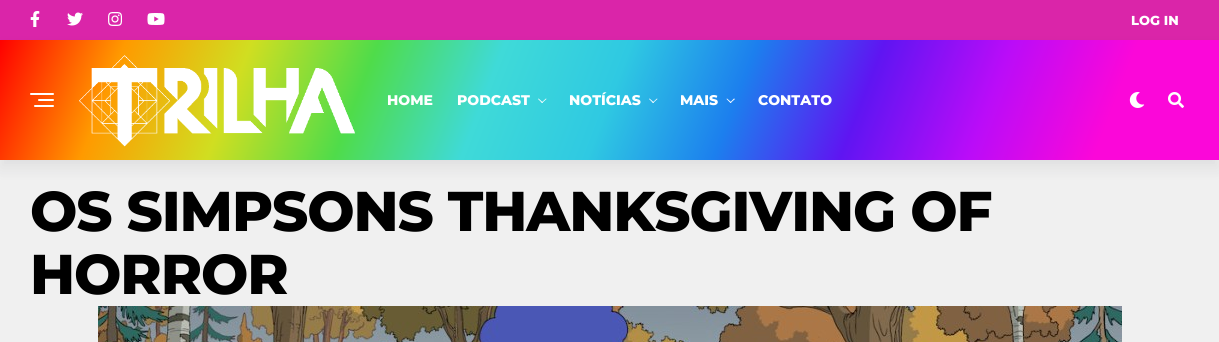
import math
import cairo


def write_spaced(ctx, x, y, s, letter, word):
	ctx.move_to(x, y)
	for ch in s:
		ctx.show_text(ch)
		ctx.rel_move_to(letter + word * (ch == ' '), 0)

def round_path(ctx, x, y, w, h, r):
	ctx.new_sub_path()
	for i, (u, v) in enumerate([(x + w - r, y + h - r), (x + r, y + h - r), (x + r, y + r), (x + w - r, y + r)]):
		ctx.arc(u, v, r, i * math.pi / 2, (i + 1) * math.pi / 2)
	ctx.close_path()

def blur_box(ctx, x, y, w, h, r, blur, alpha):
	ctx.push_group_with_content(cairo.CONTENT_ALPHA)
	ctx.set_operator(cairo.OPERATOR_SOURCE)
	for i in range(15, -16, -2):
		e = blur * i / 6
		if min(w, h) + 2 * e > 0:
			ctx.set_source_rgba(0, 0, 0, alpha * math.erfc((i - 1) / 8.5) / 2)
			round_path(ctx, x - e, y - e, w + 2 * e, h + 2 * e, max(0, min(r + e + blur * .6, min(w, h) / 2 + e)))
			ctx.fill()
	ctx.mask(ctx.pop_group())

def paste(ctx, path, x, y, w, h):
	ctx.save()
	ctx.set_source_surface(cairo.ImageSurface.create_from_png(path), x, y)
	ctx.rectangle(x, y, w, h)
	ctx.fill()
	ctx.restore()

def draw(ctx):
	ctx.set_source_rgb(0.941, 0.941, 0.941)
	ctx.paint()
	ctx.set_source_rgb(0.855, 0.145, 0.663)
	ctx.rectangle(0, 0, 1219, 40)
	ctx.fill()
	paste(ctx, 'media/1.png', 30, 11, 10, 16)
	paste(ctx, 'media/2.png', 67, 12, 16, 14)
	paste(ctx, 'media/3.png', 108, 12, 14, 14)
	paste(ctx, 'media/4.png', 147, 13, 18, 12)
	ctx.select_font_face('Montserrat ExtraBold')
	ctx.set_font_size(13)
	ctx.set_source_rgb(1, 1, 1)
	ctx.move_to(1131, 25)
	ctx.show_text('LOG IN')
	ctx.set_source_rgb(0.082, 0.082, 0.118)
	blur_box(ctx, 0, 48, 1219, 120, 0, 8, 0.08)
	gradient = cairo.LinearGradient(58, -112, 1161, 312)
	gradient.add_color_stop_rgba(0, 1, 0, 0, 1)
	gradient.add_color_stop_rgba(0.1, 1, 0.604, 0, 1)
	gradient.add_color_stop_rgba(0.2, 0.816, 0.871, 0.129, 1)
	gradient.add_color_stop_rgba(0.3, 0.31, 0.863, 0.29, 1)
	gradient.add_color_stop_rgba(0.4, 0.247, 0.855, 0.847, 1)
	gradient.add_color_stop_rgba(0.5, 0.184, 0.788, 0.886, 1)
	gradient.add_color_stop_rgba(0.6, 0.11, 0.498, 0.933, 1)
	gradient.add_color_stop_rgba(0.7, 0.373, 0.082, 0.949, 1)
	gradient.add_color_stop_rgba(0.8, 0.729, 0.047, 0.973, 1)
	gradient.add_color_stop_rgba(0.9, 0.984, 0.027, 0.851, 1)
	ctx.set_source(gradient)
	ctx.rectangle(0, 40, 1219, 120)
	ctx.fill()
	ctx.set_source_rgb(1, 1, 1)
	round_path(ctx, 30, 93, 24, 2, 1)
	ctx.fill()
	round_path(ctx, 38, 99, 16, 2, 1)
	ctx.fill()
	round_path(ctx, 34, 105, 20, 2, 1)
	ctx.fill()
	paste(ctx, 'media/5.png', 79, 55, 276, 92)
	ctx.set_font_size(14)
	ctx.move_to(387, 105)
	ctx.show_text('HOME')
	ctx.move_to(457, 105)
	ctx.show_text('PODCAST')
	ctx.new_path()
	ctx.move_to(546, 98.5)
	ctx.line_to(546.5, 99)
	ctx.line_to(542, 103)
	ctx.line_to(541.5, 102.5)
	ctx.close_path()
	ctx.fill()
	ctx.new_path()
	ctx.move_to(538.5, 98.5)
	ctx.line_to(543, 102.5)
	ctx.line_to(542, 103)
	ctx.line_to(538, 99)
	ctx.close_path()
	ctx.fill()
	ctx.move_to(569, 105)
	ctx.show_text('NOTÍCIAS')
	ctx.new_path()
	ctx.move_to(657, 98.5)
	ctx.line_to(657.5, 99)
	ctx.line_to(653, 103)
	ctx.line_to(652.5, 102.5)
	ctx.close_path()
	ctx.fill()
	ctx.new_path()
	ctx.move_to(649.5, 98.5)
	ctx.line_to(654, 102.5)
	ctx.line_to(653, 103)
	ctx.line_to(649, 99)
	ctx.close_path()
	ctx.fill()
	ctx.move_to(680, 105)
	ctx.show_text('MAIS')
	ctx.new_path()
	ctx.move_to(734, 98.5)
	ctx.line_to(735, 99)
	ctx.line_to(730.5, 103)
	ctx.line_to(730, 102.5)
	ctx.close_path()
	ctx.fill()
	ctx.new_path()
	ctx.move_to(727, 98.5)
	ctx.line_to(731.5, 102.5)
	ctx.line_to(730.5, 103)
	ctx.line_to(726.5, 99)
	ctx.close_path()
	ctx.fill()
	ctx.move_to(758, 105)
	ctx.show_text('CONTATO')
	paste(ctx, 'media/6.png', 1129, 92, 16, 16)
	paste(ctx, 'media/7.png', 1168, 92, 16, 16)
	ctx.set_font_size(56)
	ctx.set_source_rgb(0, 0, 0)
	write_spaced(ctx, 30, 231, 'OS SIMPSONS THANKSGIVING OF', -1.1, 0)
	write_spaced(ctx, 30, 294, 'HORROR', -1.1, 0)
	paste(ctx, 'media/8.png', 98, 306, 1024, 36)


surface = cairo.ImageSurface(cairo.FORMAT_RGB24, 1219, 342)
ctx = cairo.Context(surface)
options = cairo.FontOptions()
options.set_hint_metrics(cairo.HINT_METRICS_OFF)
options.set_hint_style(cairo.HINT_STYLE_NONE)
ctx.set_font_options(options)
ctx.set_miter_limit(4)
draw(ctx)
surface.write_to_png('image.png')
